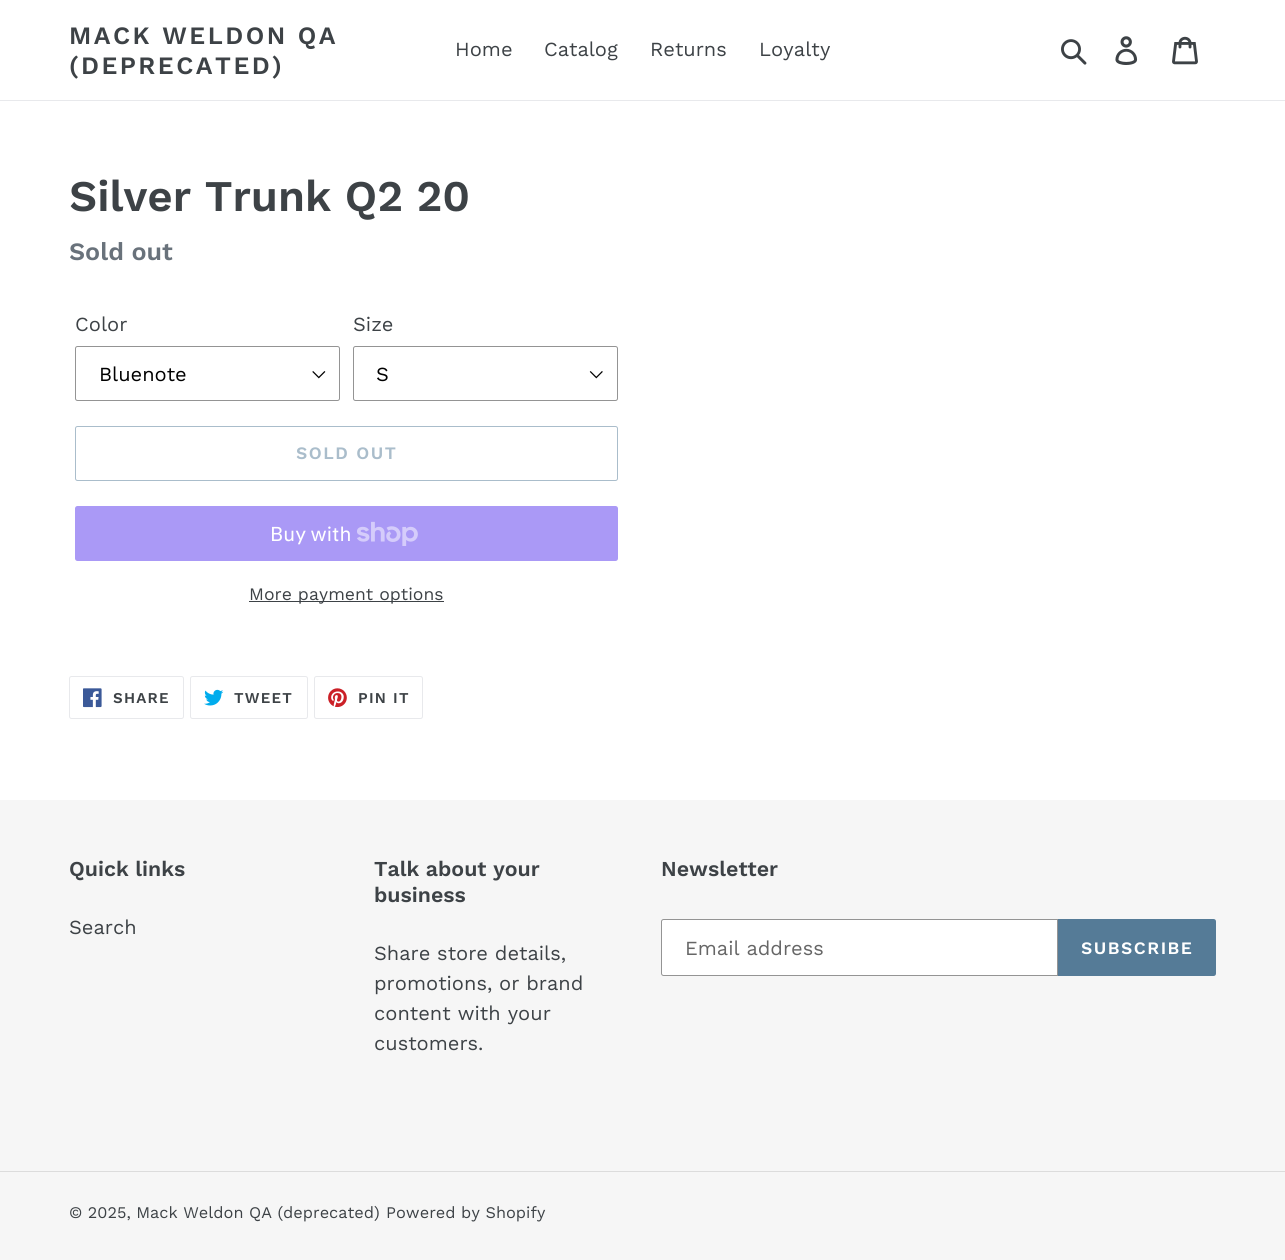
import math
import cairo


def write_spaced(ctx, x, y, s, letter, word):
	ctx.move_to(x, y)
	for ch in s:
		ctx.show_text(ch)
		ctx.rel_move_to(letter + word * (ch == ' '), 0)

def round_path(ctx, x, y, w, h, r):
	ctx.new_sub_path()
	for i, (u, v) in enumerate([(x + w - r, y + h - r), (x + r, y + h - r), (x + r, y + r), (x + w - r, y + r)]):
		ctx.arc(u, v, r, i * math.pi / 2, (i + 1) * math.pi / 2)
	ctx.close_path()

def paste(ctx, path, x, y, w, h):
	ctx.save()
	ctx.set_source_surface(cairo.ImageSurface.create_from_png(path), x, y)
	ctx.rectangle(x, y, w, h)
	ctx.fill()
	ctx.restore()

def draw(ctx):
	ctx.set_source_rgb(1, 1, 1)
	ctx.paint()
	ctx.set_source_rgb(0.91, 0.914, 0.922)
	ctx.rectangle(0, 100, 1285, 1)
	ctx.fill()
	ctx.select_font_face('Work Sans SemiBold')
	ctx.set_font_size(25)
	ctx.set_source_rgb(0.239, 0.259, 0.275)
	write_spaced(ctx, 69, 44, 'MACK WELDON QA', 2.5, 0)
	write_spaced(ctx, 69, 74, '(DEPRECATED)', 2.5, 0)
	ctx.select_font_face('Work Sans')
	ctx.set_font_size(20)
	for x, y, s in [
		(455, 56, 'Home'),
		(544, 56, 'Catalog'),
		(650, 56, 'Returns'),
		(759, 56, 'Loyalty'),
	]:
		ctx.move_to(x, y)
		ctx.show_text(s)
	paste(ctx, 'media/1.png', 1061, 39, 26, 26)
	paste(ctx, 'media/2.png', 1115, 36, 23, 29)
	paste(ctx, 'media/3.png', 1172, 36, 26, 29)
	ctx.select_font_face('Work Sans SemiBold')
	ctx.set_font_size(43.75)
	ctx.move_to(69, 211)
	ctx.show_text('Silver Trunk Q2 20')
	ctx.set_font_size(25)
	ctx.set_source_rgb(0.412, 0.447, 0.482)
	ctx.move_to(69, 260)
	ctx.show_text('Sold out')
	ctx.select_font_face('Work Sans')
	ctx.set_font_size(20)
	ctx.set_source_rgb(0.239, 0.259, 0.275)
	ctx.move_to(75, 331)
	ctx.show_text('Color')
	paste(ctx, 'media/4.png', 312, 371, 14, 8)
	round_path(ctx, 75.5, 346.5, 264, 54, 2)
	ctx.set_source_rgb(0.58, 0.58, 0.58)
	ctx.set_line_width(1)
	ctx.stroke()
	ctx.set_source_rgb(0, 0, 0)
	ctx.move_to(99, 381)
	ctx.show_text('Bluenote')
	ctx.set_source_rgb(0.239, 0.259, 0.275)
	ctx.move_to(353, 331)
	ctx.show_text('Size')
	paste(ctx, 'media/5.png', 589, 371, 14, 8)
	round_path(ctx, 353.5, 346.5, 264, 54, 2)
	ctx.set_source_rgb(0.58, 0.58, 0.58)
	ctx.stroke()
	ctx.set_source_rgb(0, 0, 0)
	ctx.move_to(376, 381)
	ctx.show_text('S')
	round_path(ctx, 75.5, 426.5, 542, 54, 2)
	ctx.set_source_rgb(0.667, 0.741, 0.796)
	ctx.stroke()
	ctx.select_font_face('Work Sans SemiBold')
	ctx.set_font_size(17.5)
	write_spaced(ctx, 296, 459, 'SOLD OUT', 1.5, 0)
	ctx.set_source_rgb(0.667, 0.6, 0.961)
	round_path(ctx, 75, 506, 543, 55, 2.5)
	ctx.fill()
	ctx.select_font_face('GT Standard')
	ctx.set_font_size(20)
	ctx.set_source_rgb(1, 1, 1)
	ctx.move_to(270, 541)
	ctx.show_text('Buy with')
	paste(ctx, 'media/6.png', 357, 521, 61, 25)
	ctx.set_source_rgb(0.239, 0.259, 0.275)
	ctx.rectangle(249, 601, 195, 1)
	ctx.fill()
	ctx.select_font_face('Work Sans')
	ctx.set_font_size(17.5)
	ctx.move_to(249, 600)
	ctx.show_text('More payment options')
	round_path(ctx, 69.5, 676.5, 114, 42, 2)
	ctx.set_source_rgb(0.91, 0.914, 0.922)
	ctx.stroke()
	paste(ctx, 'media/7.png', 83, 688, 19, 20)
	ctx.select_font_face('Work Sans SemiBold')
	ctx.set_font_size(15)
	ctx.set_source_rgb(0.239, 0.259, 0.275)
	write_spaced(ctx, 113, 703, 'SHARE', 1.25, 0)
	round_path(ctx, 190.5, 676.5, 117, 42, 2)
	ctx.set_source_rgb(0.91, 0.914, 0.922)
	ctx.stroke()
	paste(ctx, 'media/8.png', 204, 689, 20, 17)
	ctx.set_source_rgb(0.239, 0.259, 0.275)
	write_spaced(ctx, 234, 703, 'TWEET', 1.25, 0)
	round_path(ctx, 314.5, 676.5, 108, 42, 2)
	ctx.set_source_rgb(0.91, 0.914, 0.922)
	ctx.stroke()
	paste(ctx, 'media/9.png', 328, 688, 19, 20)
	ctx.set_source_rgb(0.239, 0.259, 0.275)
	write_spaced(ctx, 358, 703, 'PIN IT', 1.25, 0)
	ctx.set_source_rgb(0.961, 0.961, 0.961)
	ctx.rectangle(0, 800, 1285, 460)
	ctx.fill()
	ctx.set_font_size(21.25)
	ctx.set_source_rgb(0.239, 0.259, 0.275)
	ctx.move_to(69, 876)
	ctx.show_text('Quick links')
	ctx.select_font_face('Work Sans')
	ctx.set_font_size(20)
	ctx.move_to(69, 934)
	ctx.show_text('Search')
	ctx.select_font_face('Work Sans SemiBold')
	ctx.set_font_size(21.25)
	ctx.move_to(374, 876)
	ctx.show_text('Talk about your')
	ctx.move_to(374, 902)
	ctx.show_text('business')
	ctx.select_font_face('Work Sans')
	ctx.set_font_size(20)
	for x, y, s in [
		(374, 960, 'Share store details,'),
		(374, 990, 'promotions, or brand'),
		(374, 1020, 'content with your'),
		(374, 1050, 'customers.'),
	]:
		ctx.move_to(x, y)
		ctx.show_text(s)
	ctx.select_font_face('Work Sans SemiBold')
	ctx.set_font_size(21.25)
	ctx.move_to(661, 876)
	ctx.show_text('Newsletter')
	ctx.set_source_rgb(1, 1, 1)
	ctx.new_path()
	ctx.move_to(663.5, 919.5)
	ctx.line_to(1057.5, 919.5)
	ctx.line_to(1057.5, 975.5)
	ctx.line_to(663.5, 975.5)
	ctx.curve_to(662.5, 975.5, 661.5, 974.5, 661.5, 973.5)
	ctx.line_to(661.5, 921.5)
	ctx.curve_to(661.5, 920.5, 662.5, 919.5, 663.5, 919.5)
	ctx.close_path()
	ctx.fill_preserve()
	ctx.set_source_rgb(0.58, 0.58, 0.58)
	ctx.stroke()
	ctx.select_font_face('Work Sans')
	ctx.set_font_size(20)
	ctx.set_source_rgb(0.4, 0.4, 0.4)
	ctx.move_to(685, 955)
	ctx.show_text('Email address')
	ctx.set_source_rgb(0.333, 0.482, 0.592)
	ctx.new_path()
	ctx.move_to(1058, 919)
	ctx.line_to(1213.5, 919)
	ctx.curve_to(1215, 919, 1216, 920, 1216, 921.5)
	ctx.line_to(1216, 973.5)
	ctx.curve_to(1216, 975, 1215, 976, 1213.5, 976)
	ctx.line_to(1058, 976)
	ctx.close_path()
	ctx.fill()
	ctx.select_font_face('Work Sans SemiBold')
	ctx.set_font_size(17.5)
	ctx.set_source_rgb(1, 1, 1)
	write_spaced(ctx, 1081, 954, 'SUBSCRIBE', 1.5, 0)
	ctx.set_source_rgb(0.863, 0.863, 0.863)
	ctx.rectangle(0, 1171, 1285, 1)
	ctx.fill()
	ctx.select_font_face('Work Sans')
	ctx.set_font_size(16.25)
	ctx.set_source_rgb(0.239, 0.259, 0.275)
	ctx.move_to(69, 1218)
	ctx.show_text('© 2025, Mack Weldon QA (deprecated)')
	ctx.move_to(386, 1218)
	ctx.show_text('Powered by Shopify')


surface = cairo.ImageSurface(cairo.FORMAT_RGB24, 1285, 1260)
ctx = cairo.Context(surface)
options = cairo.FontOptions()
options.set_hint_metrics(cairo.HINT_METRICS_OFF)
options.set_hint_style(cairo.HINT_STYLE_NONE)
ctx.set_font_options(options)
ctx.set_miter_limit(4)
draw(ctx)
surface.write_to_png('image.png')
